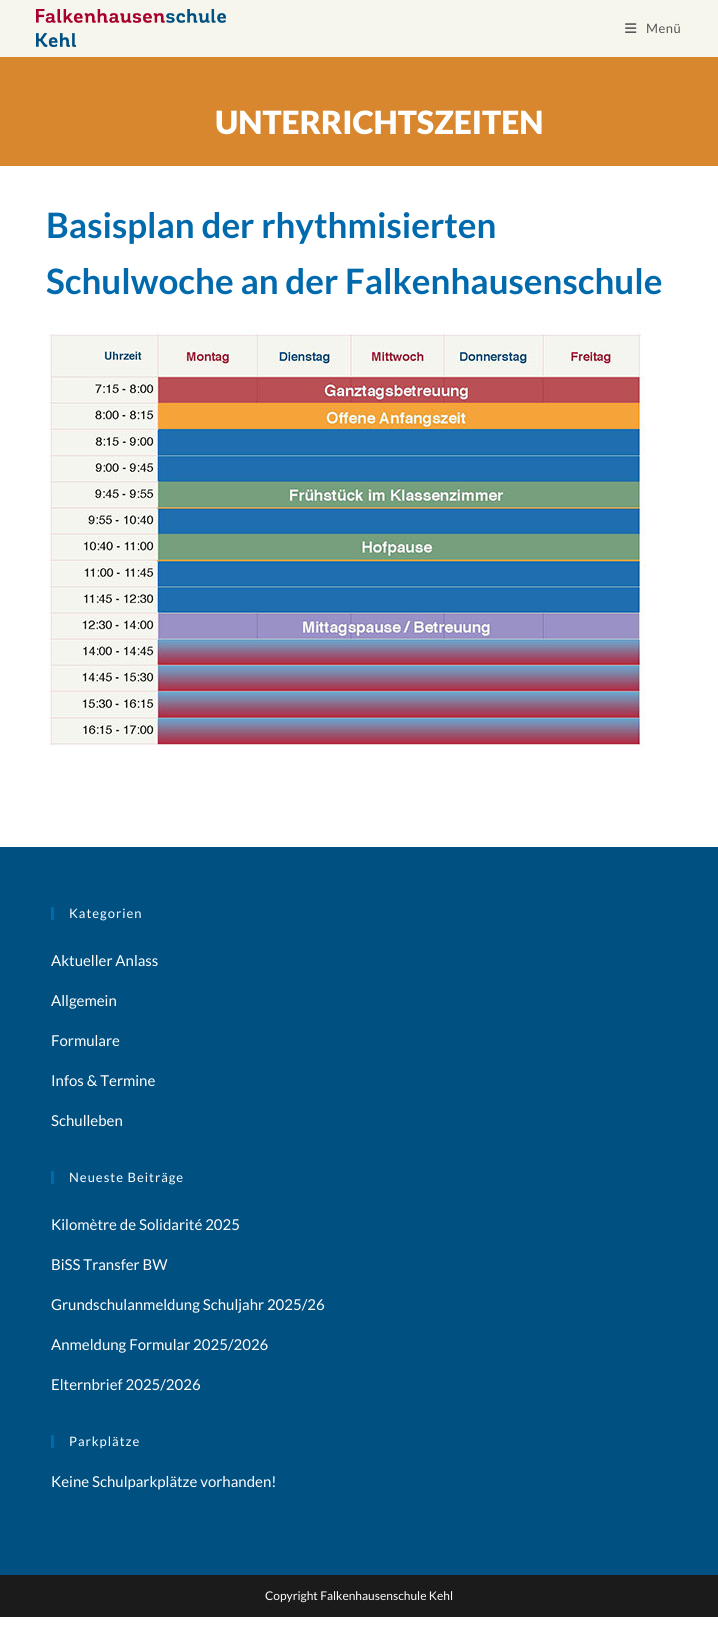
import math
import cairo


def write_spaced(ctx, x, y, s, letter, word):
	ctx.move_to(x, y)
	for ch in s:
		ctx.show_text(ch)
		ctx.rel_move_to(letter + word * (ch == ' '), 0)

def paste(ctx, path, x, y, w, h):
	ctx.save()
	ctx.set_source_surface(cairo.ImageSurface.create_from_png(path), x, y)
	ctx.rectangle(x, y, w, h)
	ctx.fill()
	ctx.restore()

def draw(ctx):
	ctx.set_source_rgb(1, 1, 1)
	ctx.paint()
	ctx.set_source_rgb(0.961, 0.961, 0.929)
	ctx.rectangle(0, 0, 718, 57)
	ctx.fill()
	paste(ctx, 'media/1.png', 36, 9, 190, 38)
	paste(ctx, 'media/2.png', 625, 23, 12, 10)
	ctx.select_font_face('Lato')
	ctx.set_font_size(13)
	ctx.set_source_rgb(0.333, 0.333, 0.333)
	write_spaced(ctx, 646, 33, 'Menü', 0.5, 0)
	ctx.set_source_rgb(0.847, 0.529, 0.184)
	ctx.rectangle(0, 57, 718, 109)
	ctx.fill()
	ctx.select_font_face('Lato Black')
	ctx.set_font_size(32)
	ctx.set_source_rgb(1, 1, 1)
	ctx.move_to(215, 134)
	ctx.show_text('UNTERRICHTSZEITEN')
	ctx.select_font_face('Lato', cairo.FONT_SLANT_NORMAL, cairo.FONT_WEIGHT_BOLD)
	ctx.set_font_size(35)
	ctx.set_source_rgb(0, 0.416, 0.678)
	ctx.move_to(46, 238)
	ctx.show_text('Basisplan der rhythmisierten')
	ctx.move_to(46, 294)
	ctx.show_text('Schulwoche an der Falkenhausenschule')
	paste(ctx, 'media/3.png', 48, 328, 598, 419)
	ctx.set_source_rgb(0, 0.314, 0.51)
	ctx.rectangle(0, 847, 718, 728)
	ctx.fill()
	ctx.set_source_rgb(0, 0.416, 0.678)
	ctx.rectangle(51, 907, 3, 13)
	ctx.fill()
	ctx.select_font_face('Lato')
	ctx.set_font_size(13)
	ctx.set_source_rgb(1, 1, 1)
	write_spaced(ctx, 69, 918, 'Kategorien', 1, 0)
	ctx.set_font_size(15)
	for x, y, s in [
		(51, 966, 'Aktueller Anlass'),
		(51, 1006, 'Allgemein'),
		(51, 1046, 'Formulare'),
		(51, 1086, 'Infos & Termine'),
		(51, 1126, 'Schulleben'),
	]:
		ctx.move_to(x, y)
		ctx.show_text(s)
	ctx.set_source_rgb(0, 0.416, 0.678)
	ctx.rectangle(51, 1171, 3, 13)
	ctx.fill()
	ctx.set_font_size(13)
	ctx.set_source_rgb(1, 1, 1)
	write_spaced(ctx, 69, 1182, 'Neueste Beiträge', 1, 0)
	ctx.set_font_size(15)
	for x, y, s in [
		(51, 1230, 'Kilomètre de Solidarité 2025'),
		(51, 1270, 'BiSS Transfer BW'),
		(51, 1310, 'Grundschulanmeldung Schuljahr 2025/26'),
		(51, 1350, 'Anmeldung Formular 2025/2026'),
		(51, 1390, 'Elternbrief 2025/2026'),
	]:
		ctx.move_to(x, y)
		ctx.show_text(s)
	ctx.set_source_rgb(0, 0.416, 0.678)
	ctx.rectangle(51, 1435, 3, 13)
	ctx.fill()
	ctx.set_font_size(13)
	ctx.set_source_rgb(1, 1, 1)
	write_spaced(ctx, 69, 1446, 'Parkplätze', 1, 0)
	ctx.set_font_size(15)
	ctx.move_to(51, 1487)
	ctx.show_text('Keine Schulparkplätze vorhanden!')
	ctx.set_source_rgb(0.106, 0.106, 0.106)
	ctx.rectangle(0, 1575, 718, 42)
	ctx.fill()
	ctx.set_font_size(12)
	ctx.set_source_rgb(1, 1, 1)
	ctx.move_to(265, 1600)
	ctx.show_text('Copyright Falkenhausenschule Kehl')


surface = cairo.ImageSurface(cairo.FORMAT_RGB24, 718, 1626)
ctx = cairo.Context(surface)
options = cairo.FontOptions()
options.set_hint_metrics(cairo.HINT_METRICS_OFF)
options.set_hint_style(cairo.HINT_STYLE_NONE)
ctx.set_font_options(options)
ctx.set_miter_limit(4)
draw(ctx)
surface.write_to_png('image.png')
